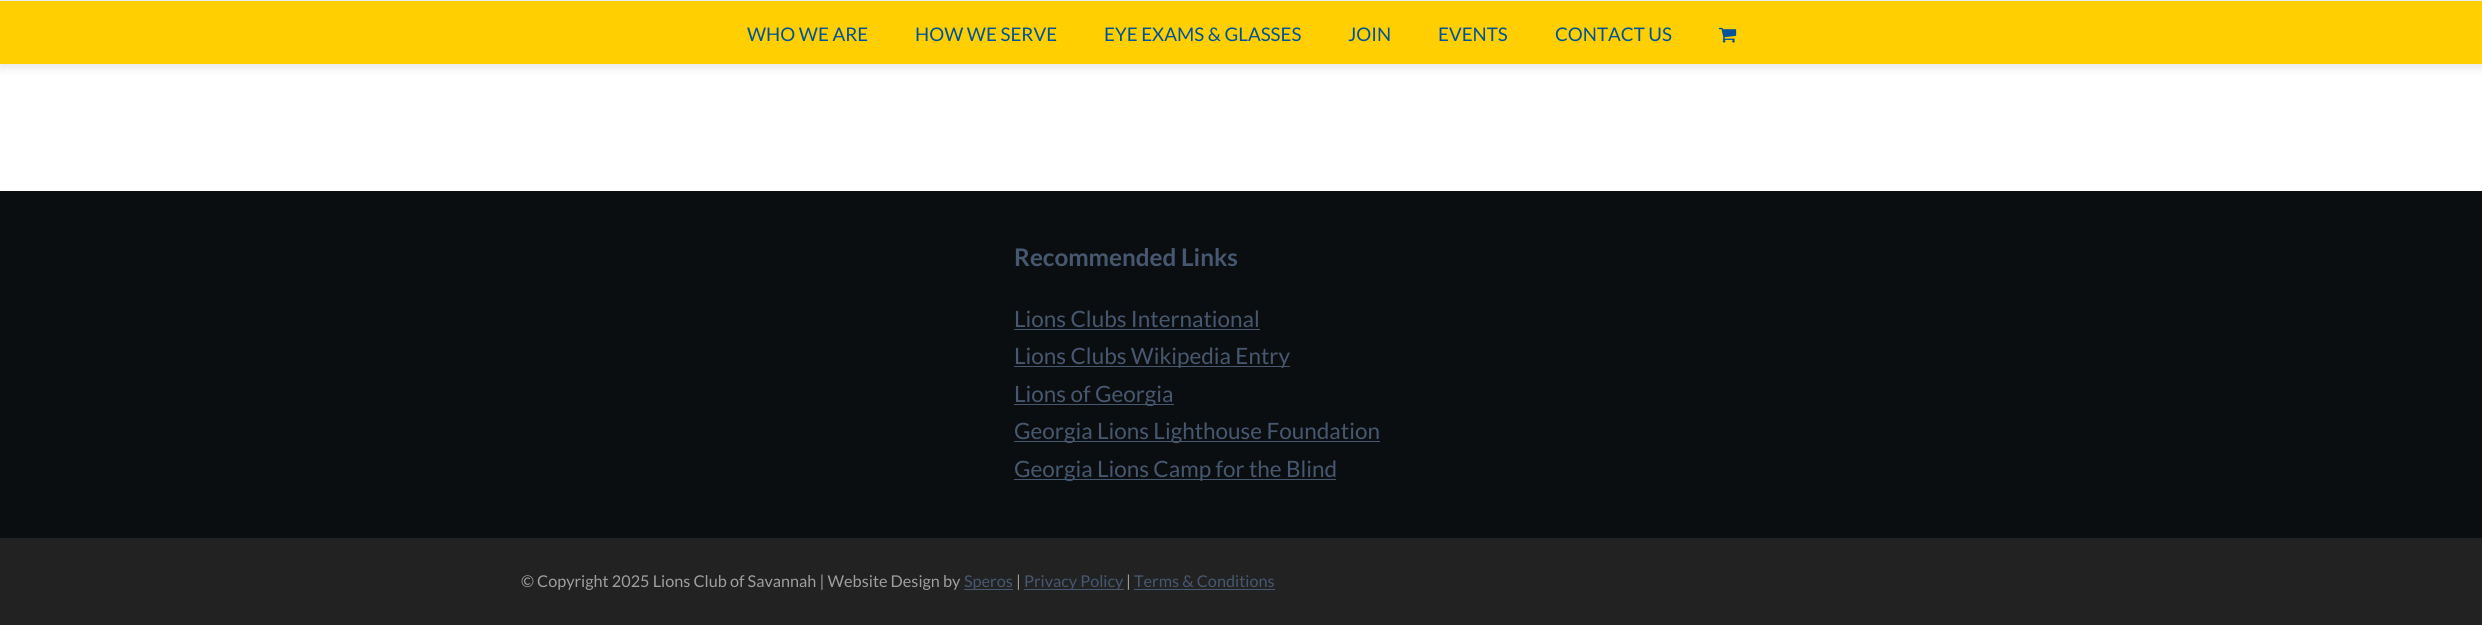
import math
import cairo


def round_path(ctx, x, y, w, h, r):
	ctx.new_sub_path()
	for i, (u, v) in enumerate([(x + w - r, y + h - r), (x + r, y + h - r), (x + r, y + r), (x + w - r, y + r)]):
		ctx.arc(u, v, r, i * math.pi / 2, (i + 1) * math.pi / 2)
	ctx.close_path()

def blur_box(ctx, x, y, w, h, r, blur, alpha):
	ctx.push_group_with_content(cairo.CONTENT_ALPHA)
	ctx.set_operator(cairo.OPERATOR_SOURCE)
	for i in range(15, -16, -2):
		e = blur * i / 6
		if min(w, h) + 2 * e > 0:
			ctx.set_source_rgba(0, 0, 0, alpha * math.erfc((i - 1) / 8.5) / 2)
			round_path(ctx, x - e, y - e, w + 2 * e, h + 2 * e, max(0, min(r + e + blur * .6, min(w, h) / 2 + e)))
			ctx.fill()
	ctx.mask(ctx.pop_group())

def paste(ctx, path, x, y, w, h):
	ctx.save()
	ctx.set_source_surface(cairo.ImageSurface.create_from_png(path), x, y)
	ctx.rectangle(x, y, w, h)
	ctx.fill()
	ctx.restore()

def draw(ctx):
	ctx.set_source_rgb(1, 1, 1)
	ctx.paint()
	ctx.set_source_rgb(0, 0, 0)
	blur_box(ctx, 0, 3, 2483, 65, 0, 4.5, 0.1)
	ctx.set_source_rgb(1, 0.812, 0.004)
	ctx.rectangle(0, 1, 2482, 63)
	ctx.fill()
	ctx.set_source_rgb(0.933, 0.933, 0.933)
	ctx.rectangle(0, 0, 2482, 1)
	ctx.rectangle(0, 64, 2482, 1)
	ctx.fill()
	ctx.select_font_face('Lato')
	ctx.set_font_size(18.75)
	ctx.set_source_rgb(0, 0.325, 0.608)
	for x, y, s in [
		(747, 41, 'WHO WE ARE'),
		(915, 41, 'HOW WE SERVE'),
		(1104, 41, 'EYE EXAMS & GLASSES'),
		(1348, 41, 'JOIN'),
		(1438, 41, 'EVENTS'),
		(1555, 41, 'CONTACT US'),
	]:
		ctx.move_to(x, y)
		ctx.show_text(s)
	paste(ctx, 'media/1.png', 1718, 27, 19, 16)
	ctx.set_source_rgb(0.043, 0.055, 0.067)
	ctx.rectangle(0, 191, 2482, 347)
	ctx.fill()
	ctx.select_font_face('Lato', cairo.FONT_SLANT_NORMAL, cairo.FONT_WEIGHT_BOLD)
	ctx.set_font_size(24.25)
	ctx.set_source_rgb(0.275, 0.345, 0.435)
	ctx.move_to(1014, 266)
	ctx.show_text('Recommended Links')
	ctx.select_font_face('Lato')
	ctx.set_font_size(22.5)
	ctx.move_to(1014, 327)
	ctx.show_text('Lions Clubs International')
	ctx.rectangle(1014, 329, 246, 1)
	ctx.fill()
	ctx.rectangle(1014, 366, 276, 1)
	ctx.fill()
	ctx.move_to(1014, 364)
	ctx.show_text('Lions Clubs Wikipedia Entry')
	ctx.rectangle(1014, 404, 160, 1)
	ctx.fill()
	ctx.move_to(1014, 402)
	ctx.show_text('Lions of Georgia')
	ctx.rectangle(1014, 441, 366, 1)
	ctx.fill()
	ctx.move_to(1014, 439)
	ctx.show_text('Georgia Lions Lighthouse Foundation')
	ctx.rectangle(1014, 479, 322, 1)
	ctx.fill()
	ctx.move_to(1014, 477)
	ctx.show_text('Georgia Lions Camp for the Blind')
	ctx.set_source_rgb(0.133, 0.133, 0.133)
	ctx.rectangle(0, 538, 2482, 87)
	ctx.fill()
	ctx.set_font_size(16.25)
	ctx.set_source_rgb(0.62, 0.62, 0.62)
	ctx.move_to(521, 587)
	ctx.show_text('© Copyright 2025 Lions Club of Savannah | Website Design by')
	ctx.set_source_rgb(0.275, 0.345, 0.435)
	ctx.rectangle(964, 589, 49, 1)
	ctx.fill()
	ctx.move_to(964, 587)
	ctx.show_text('Speros')
	ctx.set_source_rgb(0.62, 0.62, 0.62)
	ctx.move_to(1016, 587)
	ctx.show_text('|')
	ctx.set_source_rgb(0.275, 0.345, 0.435)
	ctx.rectangle(1024, 589, 100, 1)
	ctx.fill()
	ctx.move_to(1024, 587)
	ctx.show_text('Privacy Policy')
	ctx.set_source_rgb(0.62, 0.62, 0.62)
	ctx.move_to(1126, 587)
	ctx.show_text('|')
	ctx.set_source_rgb(0.275, 0.345, 0.435)
	ctx.move_to(1134, 587)
	ctx.show_text('Terms & Conditions')
	ctx.rectangle(1134, 589, 141, 1)
	ctx.fill()


surface = cairo.ImageSurface(cairo.FORMAT_RGB24, 2482, 625)
ctx = cairo.Context(surface)
options = cairo.FontOptions()
options.set_hint_metrics(cairo.HINT_METRICS_OFF)
options.set_hint_style(cairo.HINT_STYLE_NONE)
ctx.set_font_options(options)
ctx.set_miter_limit(4)
draw(ctx)
surface.write_to_png('image.png')
